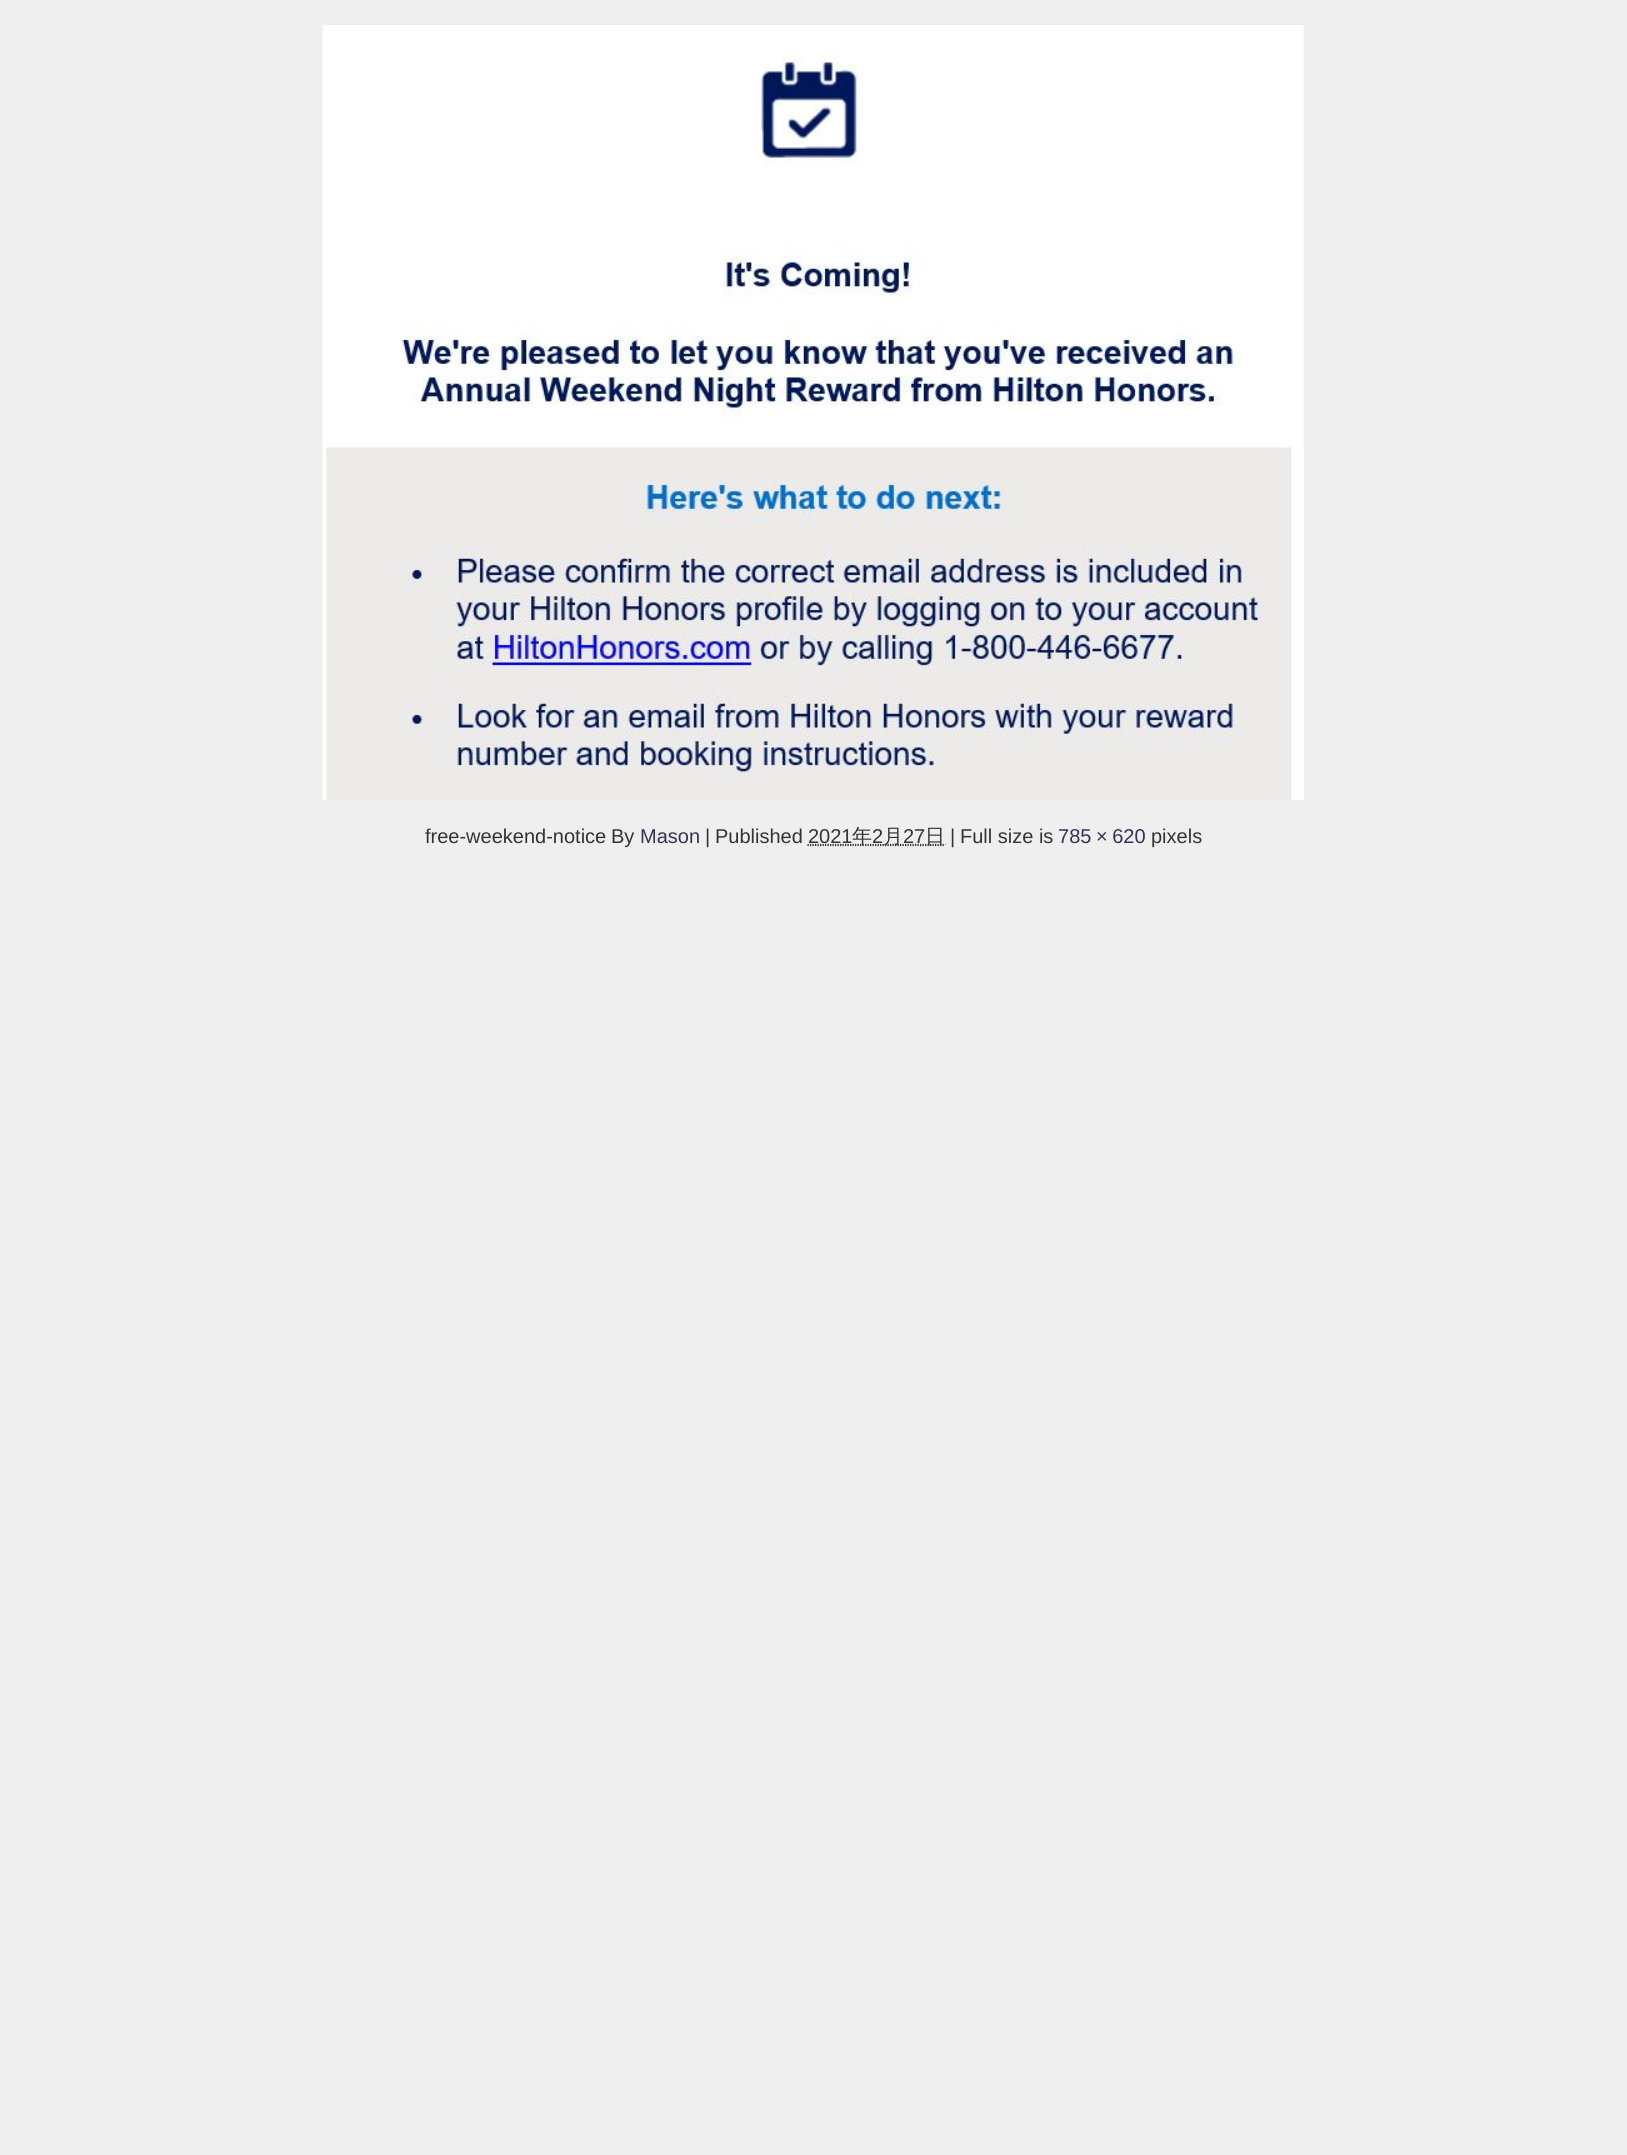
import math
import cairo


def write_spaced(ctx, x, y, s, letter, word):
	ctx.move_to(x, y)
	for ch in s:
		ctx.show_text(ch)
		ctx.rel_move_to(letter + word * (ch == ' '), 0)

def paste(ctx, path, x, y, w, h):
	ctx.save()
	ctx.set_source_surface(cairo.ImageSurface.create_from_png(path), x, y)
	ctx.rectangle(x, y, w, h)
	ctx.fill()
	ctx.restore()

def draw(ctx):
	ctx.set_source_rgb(0.937, 0.937, 0.937)
	ctx.paint()
	paste(ctx, 'media/1.png', 322, 25, 982, 775)
	ctx.select_font_face('Liberation Sans')
	ctx.set_font_size(20)
	ctx.set_source_rgb(0.2, 0.2, 0.2)
	ctx.move_to(425, 843)
	ctx.show_text('free-weekend-notice')
	ctx.move_to(611, 843)
	ctx.show_text('By')
	ctx.set_source_rgb(0.2, 0.2, 0.333)
	ctx.move_to(640, 843)
	ctx.show_text('Mason')
	ctx.set_source_rgb(0.2, 0.2, 0.2)
	ctx.move_to(705, 843)
	ctx.show_text('|')
	ctx.move_to(715, 843)
	ctx.show_text('Published')
	ctx.new_path()
	ctx.move_to(807.5, 845.5)
	ctx.line_to(945, 845.5)
	ctx.set_line_width(1.2)
	ctx.set_dash([1.25, 1.25])
	ctx.stroke()
	ctx.new_path()
	ctx.move_to(807.5, 844.5)
	ctx.line_to(945.5, 844.5)
	ctx.stroke()
	ctx.move_to(808, 843)
	ctx.show_text('2021')
	ctx.select_font_face('WenQuanYi Zen Hei Medium')
	ctx.move_to(852, 843)
	ctx.show_text('年')
	ctx.select_font_face('Liberation Sans')
	ctx.move_to(872, 843)
	ctx.show_text('2')
	ctx.select_font_face('WenQuanYi Zen Hei Medium')
	ctx.move_to(883, 843)
	ctx.show_text('月')
	ctx.select_font_face('Liberation Sans')
	ctx.move_to(903, 843)
	ctx.show_text('27')
	ctx.select_font_face('WenQuanYi Zen Hei Medium')
	ctx.move_to(925, 843)
	ctx.show_text('日')
	ctx.select_font_face('Liberation Sans')
	ctx.move_to(950, 843)
	ctx.show_text('|')
	ctx.move_to(960, 843)
	ctx.show_text('Full size is')
	ctx.set_source_rgb(0.2, 0.2, 0.333)
	write_spaced(ctx, 1058, 843, '785 × 620', 0, -1)
	ctx.set_source_rgb(0.2, 0.2, 0.2)
	ctx.move_to(1151, 843)
	ctx.show_text('pixels')


surface = cairo.ImageSurface(cairo.FORMAT_RGB24, 1627, 2155)
ctx = cairo.Context(surface)
options = cairo.FontOptions()
options.set_hint_metrics(cairo.HINT_METRICS_OFF)
options.set_hint_style(cairo.HINT_STYLE_NONE)
ctx.set_font_options(options)
ctx.set_miter_limit(4)
draw(ctx)
surface.write_to_png('image.png')
